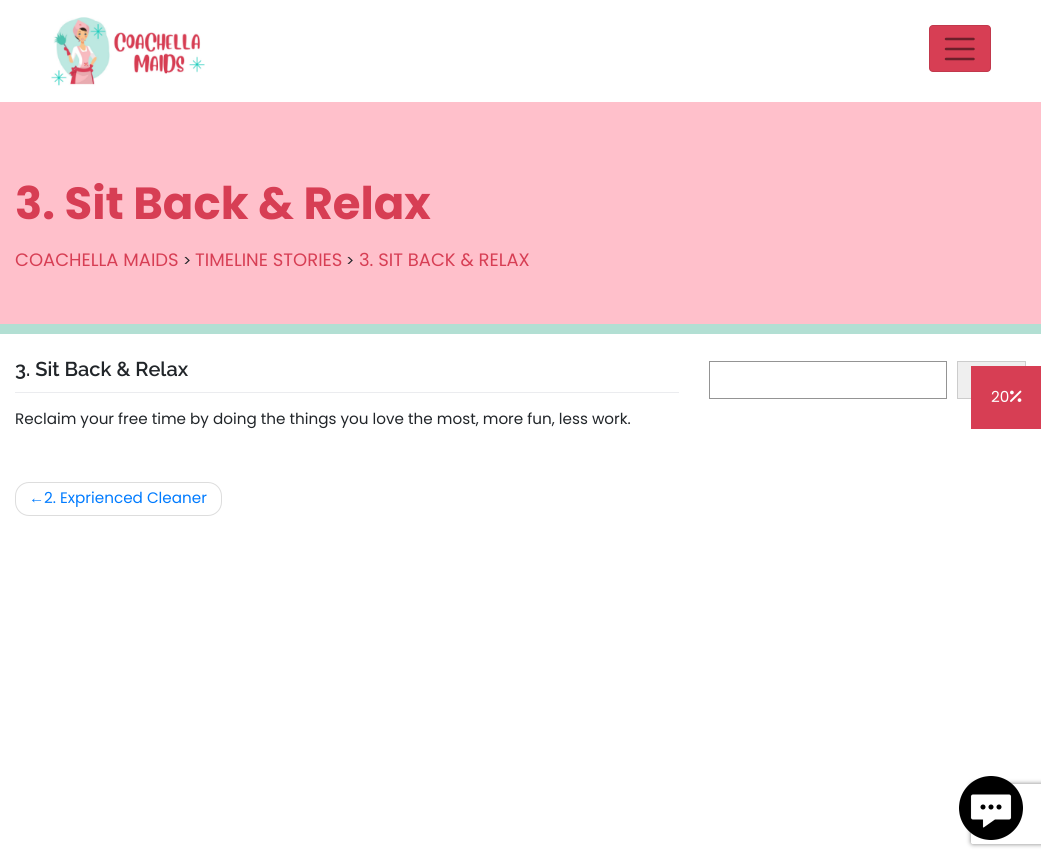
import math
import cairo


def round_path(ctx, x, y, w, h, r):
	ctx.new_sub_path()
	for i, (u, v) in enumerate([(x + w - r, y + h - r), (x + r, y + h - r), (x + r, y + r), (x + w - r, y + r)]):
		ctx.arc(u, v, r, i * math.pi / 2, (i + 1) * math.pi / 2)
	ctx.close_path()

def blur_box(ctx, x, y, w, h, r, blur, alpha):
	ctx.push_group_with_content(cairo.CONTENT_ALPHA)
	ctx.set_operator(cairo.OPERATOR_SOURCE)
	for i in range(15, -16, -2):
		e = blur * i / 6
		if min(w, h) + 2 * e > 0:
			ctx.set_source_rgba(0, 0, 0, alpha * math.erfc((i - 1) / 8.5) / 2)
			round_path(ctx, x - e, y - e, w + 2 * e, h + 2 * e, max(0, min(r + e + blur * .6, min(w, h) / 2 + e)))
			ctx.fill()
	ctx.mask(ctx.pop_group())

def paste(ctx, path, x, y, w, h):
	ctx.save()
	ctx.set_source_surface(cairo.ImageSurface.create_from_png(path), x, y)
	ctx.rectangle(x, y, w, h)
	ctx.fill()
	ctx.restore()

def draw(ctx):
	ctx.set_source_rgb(1, 1, 1)
	ctx.paint()
	paste(ctx, 'media/1.png', 51, 17, 154, 69)
	ctx.set_source_rgb(0.843, 0.243, 0.329)
	round_path(ctx, 929, 25, 62, 47, 4)
	ctx.fill()
	round_path(ctx, 929.5, 25.5, 61, 46, 3.5)
	ctx.set_source_rgba(0, 0, 0, 0.1)
	ctx.set_line_width(1)
	ctx.stroke()
	ctx.new_path()
	ctx.move_to(946, 39)
	ctx.line_to(973.5, 39)
	ctx.move_to(946, 49)
	ctx.line_to(973.5, 49)
	ctx.move_to(946, 59)
	ctx.line_to(973.5, 59)
	ctx.set_source_rgb(0.424, 0.122, 0.165)
	ctx.set_line_width(2.5)
	ctx.set_line_cap(cairo.LINE_CAP_ROUND)
	ctx.stroke()
	ctx.set_source_rgb(1, 0.753, 0.796)
	ctx.rectangle(0, 102, 1041, 222)
	ctx.fill()
	ctx.set_source_rgb(0.698, 0.875, 0.827)
	ctx.rectangle(0, 324, 1041, 10)
	ctx.fill()
	ctx.select_font_face('Poppins', cairo.FONT_SLANT_NORMAL, cairo.FONT_WEIGHT_BOLD)
	ctx.set_font_size(45)
	ctx.set_source_rgb(0.843, 0.243, 0.329)
	ctx.move_to(15, 219)
	ctx.show_text('3. Sit Back & Relax')
	ctx.select_font_face('Poppins')
	ctx.set_font_size(18)
	ctx.move_to(15, 266)
	ctx.show_text('COACHELLA MAIDS')
	ctx.set_font_size(15.2)
	ctx.set_source_rgb(0.129, 0.145, 0.161)
	ctx.move_to(183, 266)
	ctx.show_text('>')
	ctx.set_font_size(18)
	ctx.set_source_rgb(0.843, 0.243, 0.329)
	ctx.move_to(195, 266)
	ctx.show_text('TIMELINE STORIES')
	ctx.set_font_size(15.2)
	ctx.set_source_rgb(0.129, 0.145, 0.161)
	ctx.move_to(346, 266)
	ctx.show_text('>')
	ctx.set_font_size(18)
	ctx.set_source_rgb(0.843, 0.243, 0.329)
	ctx.move_to(359, 266)
	ctx.show_text('3. SIT BACK & RELAX')
	ctx.set_source_rgb(0.918, 0.925, 0.937)
	ctx.rectangle(15, 392, 664, 1)
	ctx.fill()
	ctx.select_font_face('Raleway SemiBold')
	ctx.set_font_size(20)
	ctx.set_source_rgb(0.129, 0.145, 0.161)
	ctx.move_to(15, 376)
	ctx.show_text('3. Sit Back & Relax')
	ctx.select_font_face('Poppins')
	ctx.set_font_size(15.2)
	ctx.move_to(15, 424)
	ctx.show_text('Reclaim your free time by doing the things you love the most, more fun, less work.')
	round_path(ctx, 15.5, 482.5, 206, 33, 13.5)
	ctx.set_source_rgb(0.867, 0.867, 0.867)
	ctx.set_line_width(1)
	ctx.set_line_cap(cairo.LINE_CAP_BUTT)
	ctx.stroke()
	ctx.select_font_face('Liberation Sans')
	ctx.set_source_rgb(0, 0.482, 1)
	ctx.move_to(29, 503)
	ctx.show_text('←')
	ctx.select_font_face('Poppins')
	ctx.move_to(44, 503)
	ctx.show_text('2. Exprienced Cleaner')
	ctx.rectangle(709.5, 361.5, 237, 37)
	ctx.set_source_rgb(0.58, 0.58, 0.58)
	ctx.stroke()
	ctx.set_source_rgb(0.937, 0.937, 0.937)
	ctx.rectangle(957.5, 361.5, 68, 37)
	ctx.fill_preserve()
	ctx.set_source_rgb(0.8, 0.8, 0.8)
	ctx.stroke()
	ctx.set_source_rgb(0.843, 0.243, 0.329)
	ctx.rectangle(971, 366, 70, 63)
	ctx.fill()
	ctx.set_source_rgb(1, 1, 1)
	ctx.move_to(991, 402)
	ctx.show_text('20')
	paste(ctx, 'media/2.png', 1010, 390, 12, 12)
	ctx.save()
	ctx.set_fill_rule(cairo.FILL_RULE_EVEN_ODD)
	ctx.new_path()
	ctx.move_to(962, 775)
	ctx.line_to(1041, 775)
	ctx.line_to(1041, 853)
	ctx.line_to(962, 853)
	ctx.close_path()
	ctx.move_to(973, 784)
	ctx.line_to(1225, 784)
	ctx.curve_to(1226, 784, 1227, 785, 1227, 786)
	ctx.line_to(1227, 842)
	ctx.curve_to(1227, 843, 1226, 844, 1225, 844)
	ctx.line_to(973, 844)
	ctx.curve_to(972, 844, 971, 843, 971, 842)
	ctx.line_to(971, 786)
	ctx.curve_to(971, 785, 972, 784, 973, 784)
	ctx.close_path()
	ctx.clip()
	ctx.set_source_rgb(0.502, 0.502, 0.502)
	blur_box(ctx, 971, 784, 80, 60, 2, 2.5, 1)
	ctx.restore()
	paste(ctx, 'media/3.png', 959, 776, 64, 64)


surface = cairo.ImageSurface(cairo.FORMAT_RGB24, 1041, 858)
ctx = cairo.Context(surface)
options = cairo.FontOptions()
options.set_hint_metrics(cairo.HINT_METRICS_OFF)
options.set_hint_style(cairo.HINT_STYLE_NONE)
ctx.set_font_options(options)
ctx.set_miter_limit(4)
draw(ctx)
surface.write_to_png('image.png')
